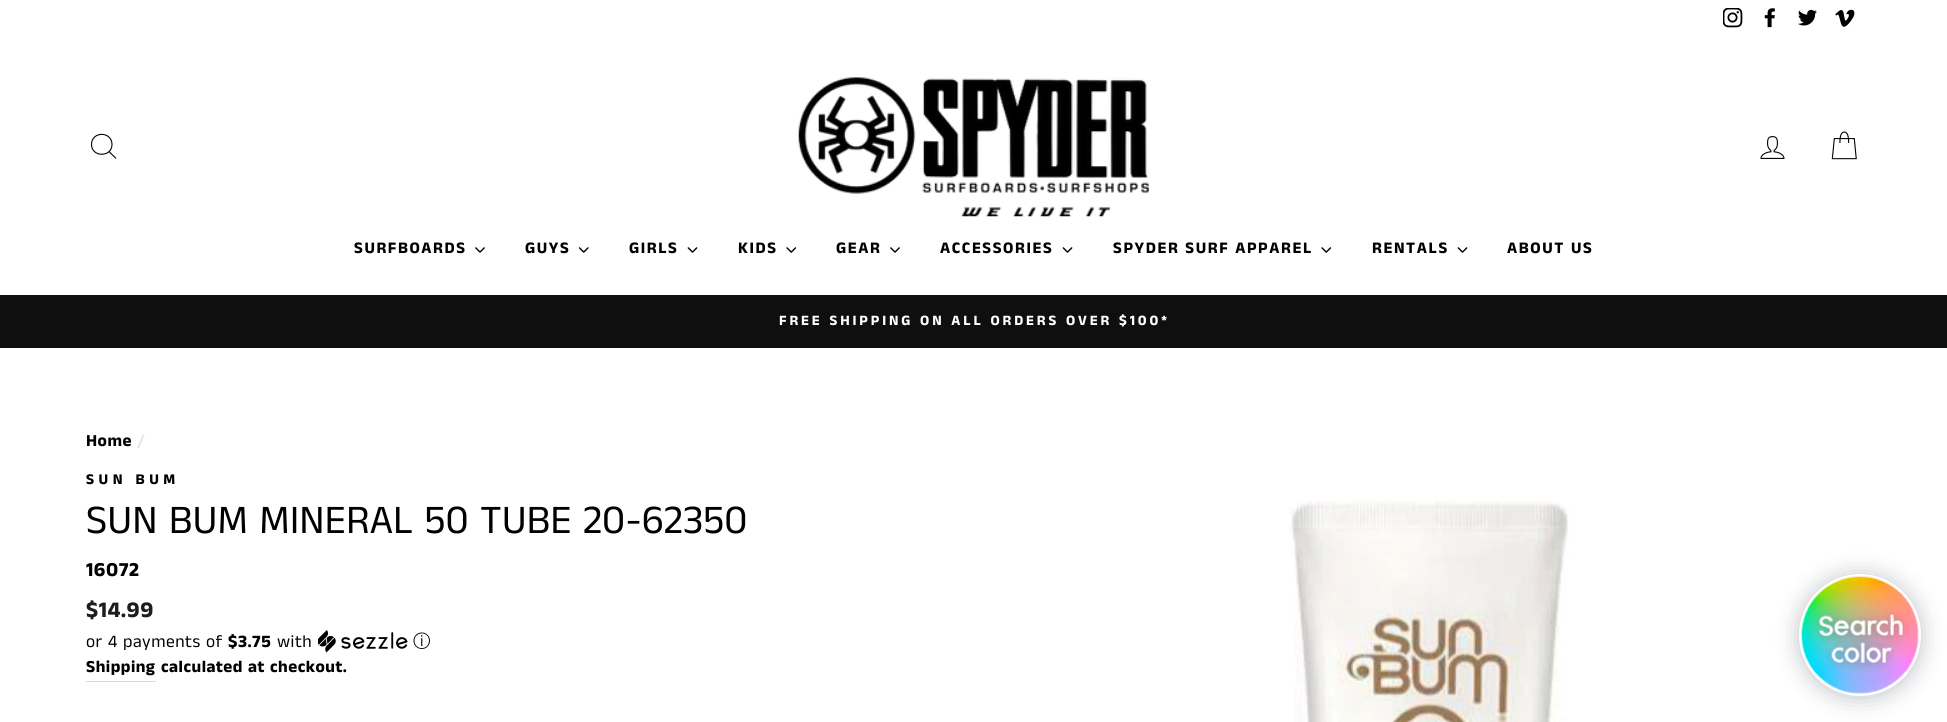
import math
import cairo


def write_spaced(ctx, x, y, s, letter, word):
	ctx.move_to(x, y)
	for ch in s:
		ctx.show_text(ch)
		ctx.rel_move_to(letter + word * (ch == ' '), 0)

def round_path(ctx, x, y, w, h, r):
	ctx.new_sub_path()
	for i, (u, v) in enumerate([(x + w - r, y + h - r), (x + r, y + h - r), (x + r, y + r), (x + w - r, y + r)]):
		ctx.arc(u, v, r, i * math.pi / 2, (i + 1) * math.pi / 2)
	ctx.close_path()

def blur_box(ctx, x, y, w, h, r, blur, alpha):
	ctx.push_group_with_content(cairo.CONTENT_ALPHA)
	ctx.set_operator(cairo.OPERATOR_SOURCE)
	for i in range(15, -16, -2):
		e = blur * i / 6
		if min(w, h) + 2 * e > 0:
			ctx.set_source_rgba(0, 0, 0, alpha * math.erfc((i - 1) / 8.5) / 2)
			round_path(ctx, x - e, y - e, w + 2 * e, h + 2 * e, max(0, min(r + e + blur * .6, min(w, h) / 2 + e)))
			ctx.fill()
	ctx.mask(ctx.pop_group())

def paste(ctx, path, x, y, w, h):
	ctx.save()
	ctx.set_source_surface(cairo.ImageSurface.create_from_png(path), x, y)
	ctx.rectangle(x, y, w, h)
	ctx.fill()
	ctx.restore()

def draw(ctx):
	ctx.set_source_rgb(1, 1, 1)
	ctx.paint()
	paste(ctx, 'media/1.png', 1723, 8, 20, 20)
	paste(ctx, 'media/2.png', 1764, 8, 11, 20)
	paste(ctx, 'media/3.png', 1798, 9, 19, 17)
	paste(ctx, 'media/4.png', 1835, 9, 20, 18)
	ctx.new_path()
	ctx.move_to(112, 144.5)
	ctx.curve_to(112, 157.5, 91.5, 157.5, 91.5, 144.5)
	ctx.curve_to(91.5, 131, 112, 131, 112, 144.5)
	ctx.close_path()
	ctx.move_to(116, 158.5)
	ctx.line_to(109, 151.5)
	ctx.set_source_rgb(0, 0, 0)
	ctx.set_line_width(1.1)
	ctx.stroke()
	paste(ctx, 'media/5.png', 798, 77, 351, 140)
	paste(ctx, 'media/6.png', 1760, 136, 25, 23)
	paste(ctx, 'media/7.png', 1831, 131, 26, 29)
	ctx.select_font_face('Anek Tamil', cairo.FONT_SLANT_NORMAL, cairo.FONT_WEIGHT_BOLD)
	ctx.set_font_size(16.25)
	write_spaced(ctx, 354, 253, 'SURFBOARDS', 1.6, 0)
	paste(ctx, 'media/8.png', 475, 247, 10, 6)
	write_spaced(ctx, 525, 253, 'GUYS', 1.6, 0)
	paste(ctx, 'media/9.png', 578, 247, 11, 6)
	write_spaced(ctx, 629, 253, 'GIRLS', 1.6, 0)
	paste(ctx, 'media/10.png', 687, 247, 11, 6)
	write_spaced(ctx, 738, 253, 'KIDS', 1.6, 0)
	paste(ctx, 'media/11.png', 786, 247, 11, 6)
	write_spaced(ctx, 836, 253, 'GEAR', 1.6, 0)
	paste(ctx, 'media/8.png', 890, 247, 10, 6)
	write_spaced(ctx, 940, 253, 'ACCESSORIES', 1.6, 0)
	paste(ctx, 'media/10.png', 1062, 247, 11, 6)
	write_spaced(ctx, 1113, 253, 'SPYDER SURF APPAREL', 1.6, 0)
	paste(ctx, 'media/11.png', 1321, 247, 11, 6)
	write_spaced(ctx, 1372, 253, 'RENTALS', 1.6, 0)
	paste(ctx, 'media/10.png', 1457, 247, 11, 6)
	write_spaced(ctx, 1507, 253, 'ABOUT US', 1.6, 0)
	ctx.set_source_rgb(0.059, 0.059, 0.059)
	ctx.rectangle(0, 295, 1947, 53)
	ctx.fill()
	ctx.set_font_size(14.45)
	ctx.set_source_rgb(1, 1, 1)
	write_spaced(ctx, 779, 325, 'FREE SHIPPING ON ALL ORDERS OVER $100*', 2.9, 0)
	ctx.set_font_size(17)
	ctx.set_source_rgb(0, 0, 0)
	write_spaced(ctx, 86, 446, 'Home', 0.5, 0)
	ctx.set_source_rgb(0.91, 0.91, 0.882)
	write_spaced(ctx, 137, 446, '/', 0.5, 0)
	ctx.set_font_size(15)
	ctx.set_source_rgb(0, 0, 0)
	write_spaced(ctx, 86, 484, 'SUN BUM', 4.5, 0)
	ctx.select_font_face('Anek Tamil')
	ctx.set_font_size(40.8)
	ctx.move_to(86, 533)
	ctx.show_text('SUN BUM MINERAL 50 TUBE 20-62350')
	ctx.select_font_face('Anek Tamil', cairo.FONT_SLANT_NORMAL, cairo.FONT_WEIGHT_BOLD)
	ctx.set_font_size(20)
	write_spaced(ctx, 86, 576, '16072', 0.5, 0)
	ctx.set_font_size(22.5)
	ctx.set_source_rgb(0.11, 0.114, 0.114)
	write_spaced(ctx, 86, 617, '$14.99', 0.5, 0)
	ctx.select_font_face('Anek Tamil')
	ctx.set_font_size(17.5)
	ctx.set_source_rgb(0, 0, 0)
	write_spaced(ctx, 86, 647, 'or 4 payments of', 0.5, 0)
	ctx.select_font_face('Anek Tamil', cairo.FONT_SLANT_NORMAL, cairo.FONT_WEIGHT_BOLD)
	write_spaced(ctx, 228, 647, '$3.75', 0.5, 0)
	ctx.select_font_face('Anek Tamil')
	write_spaced(ctx, 277, 647, 'with', 0.5, 0)
	paste(ctx, 'media/12.png', 318, 630, 90, 23)
	ctx.select_font_face('WenQuanYi Zen Hei Medium')
	write_spaced(ctx, 413, 647, 'ⓘ', 0.5, 0)
	ctx.set_source_rgb(0.851, 0.851, 0.851)
	ctx.rectangle(86, 681, 70, 1)
	ctx.fill()
	ctx.select_font_face('Anek Tamil', cairo.FONT_SLANT_NORMAL, cairo.FONT_WEIGHT_BOLD)
	ctx.set_font_size(17)
	ctx.set_source_rgb(0, 0, 0)
	write_spaced(ctx, 86, 672, 'Shipping', 0.5, 0)
	write_spaced(ctx, 161, 672, 'calculated at checkout.', 0.5, 0)
	paste(ctx, 'media/13.png', 1289, 500, 280, 222)
	ctx.set_source_rgb(0, 0.047, 0.129)
	blur_box(ctx, 1799, 575, 122, 123, 61, 11.5, 0.25)
	ctx.arc(1860, 635, 59, 0, 2 * math.pi)
	ctx.set_source_rgb(1, 1, 1)
	ctx.set_line_width(4)
	ctx.stroke()
	paste(ctx, 'media/14.png', 1801, 576, 118, 118)


surface = cairo.ImageSurface(cairo.FORMAT_RGB24, 1947, 722)
ctx = cairo.Context(surface)
options = cairo.FontOptions()
options.set_hint_metrics(cairo.HINT_METRICS_OFF)
options.set_hint_style(cairo.HINT_STYLE_NONE)
ctx.set_font_options(options)
ctx.set_miter_limit(4)
draw(ctx)
surface.write_to_png('image.png')
